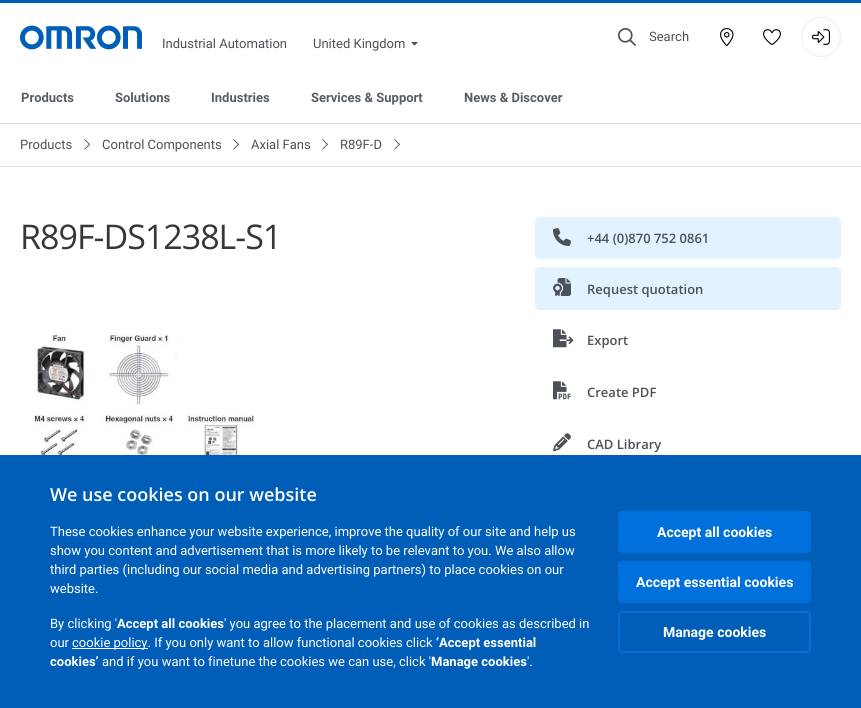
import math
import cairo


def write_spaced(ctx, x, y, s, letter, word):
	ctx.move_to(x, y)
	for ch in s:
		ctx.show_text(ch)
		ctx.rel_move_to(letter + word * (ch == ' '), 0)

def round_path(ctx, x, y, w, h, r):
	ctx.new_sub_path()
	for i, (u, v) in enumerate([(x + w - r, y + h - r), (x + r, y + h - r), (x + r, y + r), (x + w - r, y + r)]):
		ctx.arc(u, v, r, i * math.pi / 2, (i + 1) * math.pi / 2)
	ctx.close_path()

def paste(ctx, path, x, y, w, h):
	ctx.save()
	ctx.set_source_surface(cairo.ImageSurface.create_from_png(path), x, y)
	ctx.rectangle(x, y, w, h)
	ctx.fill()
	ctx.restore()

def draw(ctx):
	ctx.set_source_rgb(1, 1, 1)
	ctx.paint()
	ctx.set_source_rgb(0, 0.369, 0.722)
	ctx.rectangle(0, 0, 861, 3)
	ctx.fill()
	paste(ctx, 'media/1.png', 618, 28, 18, 18)
	ctx.select_font_face('Roboto')
	ctx.set_font_size(13)
	ctx.set_source_rgb(0.298, 0.318, 0.341)
	ctx.move_to(649, 41)
	ctx.show_text('Search')
	paste(ctx, 'media/2.png', 720, 28, 14, 19)
	paste(ctx, 'media/3.png', 763, 29, 18, 16)
	ctx.arc(821, 37, 19.5, 0, 2 * math.pi)
	ctx.set_source_rgb(0.933, 0.933, 0.933)
	ctx.set_line_width(1)
	ctx.stroke()
	paste(ctx, 'media/4.png', 812, 29, 18, 16)
	paste(ctx, 'media/5.png', 20, 25, 122, 25)
	ctx.set_source_rgb(0.298, 0.318, 0.341)
	ctx.move_to(162, 48)
	ctx.show_text('Industrial Automation')
	ctx.move_to(313, 48)
	ctx.show_text('United Kingdom')
	paste(ctx, 'media/6.png', 411, 41, 7, 5)
	ctx.set_source_rgb(0.875, 0.875, 0.875)
	ctx.rectangle(0, 123, 861, 1)
	ctx.fill()
	ctx.select_font_face('Roboto', cairo.FONT_SLANT_NORMAL, cairo.FONT_WEIGHT_BOLD)
	ctx.set_source_rgb(0.345, 0.369, 0.396)
	for x, y, s in [
		(21, 102, 'Products'),
		(115, 102, 'Solutions'),
		(211, 102, 'Industries'),
		(311, 102, 'Services & Support'),
		(464, 102, 'News & Discover'),
	]:
		ctx.move_to(x, y)
		ctx.show_text(s)
	ctx.set_source_rgb(0.875, 0.875, 0.875)
	ctx.rectangle(0, 166, 861, 1)
	ctx.fill()
	ctx.select_font_face('Roboto')
	ctx.set_source_rgb(0.298, 0.318, 0.341)
	ctx.move_to(20, 149)
	ctx.show_text('Products')
	paste(ctx, 'media/7.png', 84, 139, 6, 11)
	ctx.move_to(102, 149)
	ctx.show_text('Control Components')
	paste(ctx, 'media/7.png', 233, 139, 6, 11)
	ctx.move_to(251, 149)
	ctx.show_text('Axial Fans')
	paste(ctx, 'media/7.png', 322, 139, 6, 11)
	ctx.move_to(340, 149)
	ctx.show_text('R89F-D')
	paste(ctx, 'media/7.png', 394, 139, 6, 11)
	ctx.select_font_face('Open Sans')
	ctx.set_font_size(34)
	ctx.set_source_rgb(0.204, 0.22, 0.235)
	write_spaced(ctx, 20, 249, 'R89F-DS1238L-S1', -1, 0)
	paste(ctx, 'media/8.png', 34, 335, 221, 120)
	ctx.set_source_rgb(0.886, 0.949, 1)
	round_path(ctx, 536, 218, 304, 40, 3)
	ctx.fill_preserve()
	ctx.set_line_width(2)
	ctx.stroke()
	paste(ctx, 'media/9.png', 553, 228, 18, 18)
	ctx.select_font_face('Open Sans SemiBold')
	ctx.set_font_size(13)
	ctx.set_source_rgb(0.298, 0.318, 0.341)
	ctx.move_to(587, 243)
	ctx.show_text('+44 (0)870 752 0861')
	ctx.set_source_rgb(0.886, 0.949, 1)
	round_path(ctx, 536, 268, 304, 41, 3)
	ctx.fill_preserve()
	ctx.stroke()
	paste(ctx, 'media/10.png', 553, 278, 18, 18)
	ctx.set_source_rgb(0.298, 0.318, 0.341)
	ctx.move_to(587, 294)
	ctx.show_text('Request quotation')
	paste(ctx, 'media/11.png', 553, 329, 21, 19)
	ctx.move_to(587, 345)
	ctx.show_text('Export')
	paste(ctx, 'media/12.png', 553, 381, 18, 19)
	ctx.move_to(587, 397)
	ctx.show_text('Create PDF')
	paste(ctx, 'media/13.png', 553, 433, 18, 19)
	ctx.move_to(587, 449)
	ctx.show_text('CAD Library')
	ctx.set_source_rgb(0, 0.369, 0.722)
	ctx.rectangle(0, 455, 861, 253)
	ctx.fill()
	ctx.set_font_size(18)
	ctx.set_source_rgb(1, 1, 1)
	ctx.move_to(50, 501)
	ctx.show_text('We use cookies on our website')
	ctx.select_font_face('Roboto')
	ctx.set_font_size(13)
	for x, y, s in [
		(50, 536, 'These cookies enhance your website experience, improve the quality of our site and help us'),
		(50, 555, 'show you content and advertisement that is more likely to be relevant to you. We also allow'),
		(50, 574, 'third parties (including our social media and advertising partners) to place cookies on our'),
		(50, 593, 'website.'),
		(50, 628, 'By clicking \''),
	]:
		ctx.move_to(x, y)
		ctx.show_text(s)
	ctx.select_font_face('Roboto', cairo.FONT_SLANT_NORMAL, cairo.FONT_WEIGHT_BOLD)
	ctx.move_to(117, 628)
	ctx.show_text('Accept all cookies')
	ctx.select_font_face('Roboto')
	ctx.move_to(224, 628)
	ctx.show_text('\' you agree to the placement and use of cookies as described in')
	ctx.move_to(50, 647)
	ctx.show_text('our')
	ctx.rectangle(72, 648, 76, 1)
	ctx.fill()
	ctx.move_to(72, 647)
	ctx.show_text('cookie policy. If you only want to allow functional cookies click')
	ctx.select_font_face('Roboto', cairo.FONT_SLANT_NORMAL, cairo.FONT_WEIGHT_BOLD)
	ctx.move_to(436, 647)
	ctx.show_text('‘Accept essential')
	ctx.move_to(50, 666)
	ctx.show_text('cookies’')
	ctx.select_font_face('Roboto')
	ctx.move_to(102, 666)
	ctx.show_text('and if you want to finetune the cookies we can use, click \'')
	ctx.select_font_face('Roboto', cairo.FONT_SLANT_NORMAL, cairo.FONT_WEIGHT_BOLD)
	ctx.move_to(431, 666)
	ctx.show_text('Manage cookies')
	ctx.select_font_face('Roboto')
	ctx.move_to(527, 666)
	ctx.show_text('\'.')
	ctx.set_source_rgb(0, 0.439, 0.863)
	round_path(ctx, 619, 512, 191, 40, 3)
	ctx.fill_preserve()
	ctx.stroke()
	ctx.select_font_face('Roboto', cairo.FONT_SLANT_NORMAL, cairo.FONT_WEIGHT_BOLD)
	ctx.set_font_size(14)
	ctx.set_source_rgb(1, 1, 1)
	ctx.move_to(657, 537)
	ctx.show_text('Accept all cookies')
	ctx.set_source_rgb(0, 0.439, 0.863)
	round_path(ctx, 619, 562, 191, 40, 3)
	ctx.fill_preserve()
	ctx.stroke()
	ctx.set_source_rgb(1, 1, 1)
	ctx.move_to(636, 587)
	ctx.show_text('Accept essential cookies')
	round_path(ctx, 619, 612, 191, 40, 3)
	ctx.set_source_rgb(0, 0.439, 0.863)
	ctx.stroke()
	ctx.set_source_rgb(1, 1, 1)
	ctx.move_to(663, 637)
	ctx.show_text('Manage cookies')


surface = cairo.ImageSurface(cairo.FORMAT_RGB24, 861, 708)
ctx = cairo.Context(surface)
options = cairo.FontOptions()
options.set_hint_metrics(cairo.HINT_METRICS_OFF)
options.set_hint_style(cairo.HINT_STYLE_NONE)
ctx.set_font_options(options)
ctx.set_miter_limit(4)
draw(ctx)
surface.write_to_png('image.png')
